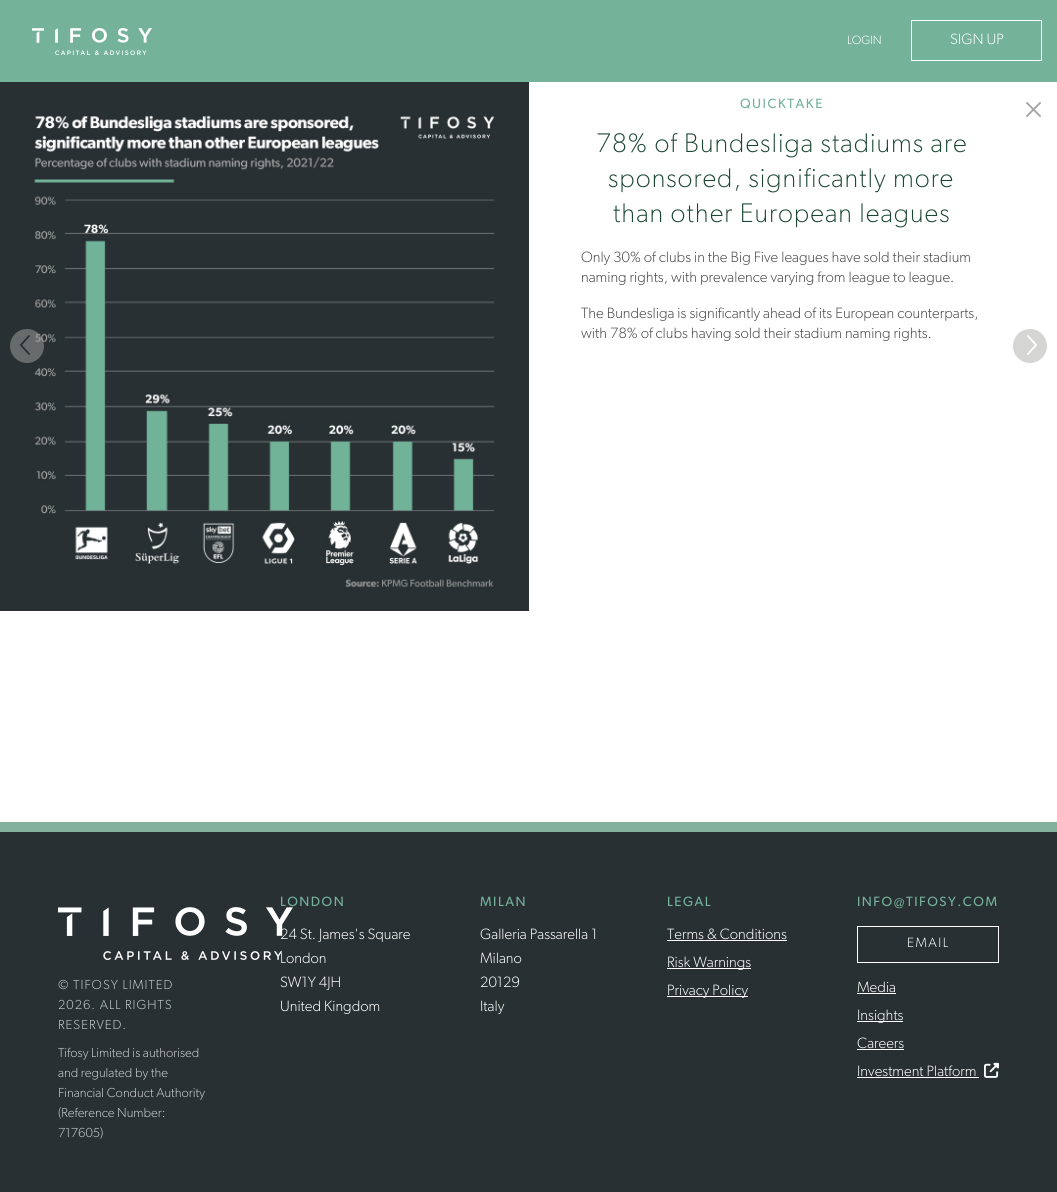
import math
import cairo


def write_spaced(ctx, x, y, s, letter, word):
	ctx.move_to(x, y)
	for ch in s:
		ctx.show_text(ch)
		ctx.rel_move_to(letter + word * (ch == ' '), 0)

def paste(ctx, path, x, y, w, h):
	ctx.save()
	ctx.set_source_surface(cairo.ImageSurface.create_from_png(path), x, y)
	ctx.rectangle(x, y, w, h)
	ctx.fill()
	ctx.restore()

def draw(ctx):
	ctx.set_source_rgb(1, 1, 1)
	ctx.paint()
	ctx.set_source_rgb(0.455, 0.702, 0.604)
	ctx.rectangle(0, 0, 1057, 82)
	ctx.fill()
	paste(ctx, 'media/1.png', 32, 28, 120, 27)
	ctx.select_font_face('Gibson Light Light')
	ctx.set_font_size(12)
	ctx.set_source_rgb(1, 1, 1)
	ctx.move_to(847, 44)
	ctx.show_text('LOGIN')
	ctx.rectangle(911.5, 20.5, 130, 40)
	ctx.set_line_width(1)
	ctx.stroke()
	ctx.set_font_size(15)
	ctx.move_to(950, 44)
	ctx.show_text('SIGN UP')
	ctx.set_source_rgb(0.157, 0.188, 0.2)
	ctx.rectangle(0, 82, 529, 529)
	ctx.fill()
	paste(ctx, 'media/3.png', 34, 115, 461, 473)
	paste(ctx, 'media/2.png', 10, 329, 34, 34)
	paste(ctx, 'media/4.png', 1013, 329, 34, 34)
	ctx.select_font_face('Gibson')
	ctx.set_font_size(13.5)
	ctx.set_source_rgb(0.455, 0.702, 0.604)
	write_spaced(ctx, 740, 108, 'QUICKTAKE', 1.5, 0)
	ctx.select_font_face('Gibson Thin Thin')
	ctx.set_font_size(27)
	ctx.set_source_rgb(0.106, 0.275, 0.2)
	for x, y, s in [
		(596, 152, '78% of Bundesliga stadiums are'),
		(608, 187, 'sponsored, significantly more'),
		(613, 222, 'than other European leagues'),
	]:
		write_spaced(ctx, x, y, s, 1, 0)
	ctx.select_font_face('Gibson Light Light')
	ctx.set_font_size(15)
	ctx.set_source_rgb(0.29, 0.29, 0.29)
	for x, y, s in [
		(581, 262, 'Only 30% of clubs in the Big Five leagues have sold their stadium'),
		(581, 282, 'naming rights, with prevalence varying from league to league.'),
		(581, 318, 'The Bundesliga is significantly ahead of its European counterparts,'),
		(581, 338, 'with 78% of clubs having sold their stadium naming rights.'),
	]:
		ctx.move_to(x, y)
		ctx.show_text(s)
	paste(ctx, 'media/5.png', 1026, 102, 15, 15)
	ctx.set_source_rgb(0.157, 0.188, 0.2)
	ctx.rectangle(0, 832, 1057, 360)
	ctx.fill()
	ctx.set_source_rgb(0.518, 0.694, 0.608)
	ctx.rectangle(0, 822, 1057, 10)
	ctx.fill()
	ctx.set_source_rgb(1, 1, 1)
	ctx.move_to(280, 939)
	ctx.show_text('24 St. James\'s Square')
	ctx.move_to(280, 963)
	ctx.show_text('London')
	paste(ctx, 'media/6.png', 58, 907, 235, 53)
	ctx.set_font_size(13.1)
	ctx.set_source_rgb(0.788, 0.796, 0.8)
	for x, y, s in [
		(58, 989, '© TIFOSY LIMITED'),
		(58, 1009, '2026. ALL RIGHTS'),
		(58, 1029, 'RESERVED.'),
	]:
		write_spaced(ctx, x, y, s, 1, 0)
	for x, y, s in [
		(58, 1057, 'Tifosy Limited is authorised'),
		(58, 1077, 'and regulated by the'),
		(58, 1097, 'Financial Conduct Authority'),
		(58, 1117, '(Reference Number:'),
		(58, 1137, '717605)'),
	]:
		ctx.move_to(x, y)
		ctx.show_text(s)
	ctx.select_font_face('Gibson')
	ctx.set_font_size(13.5)
	ctx.set_source_rgb(0.455, 0.702, 0.604)
	write_spaced(ctx, 280, 906, 'LONDON', 1.5, 0)
	ctx.select_font_face('Gibson Light Light')
	ctx.set_font_size(15)
	ctx.set_source_rgb(1, 1, 1)
	ctx.move_to(280, 987)
	ctx.show_text('SW1Y 4JH')
	ctx.move_to(280, 1011)
	ctx.show_text('United Kingdom')
	ctx.select_font_face('Gibson')
	ctx.set_font_size(13.5)
	ctx.set_source_rgb(0.455, 0.702, 0.604)
	write_spaced(ctx, 480, 906, 'MILAN', 1.5, 0)
	ctx.select_font_face('Gibson Light Light')
	ctx.set_font_size(15)
	ctx.set_source_rgb(1, 1, 1)
	for x, y, s in [
		(480, 939, 'Galleria Passarella 1'),
		(480, 963, 'Milano'),
		(480, 987, '20129'),
		(480, 1011, 'Italy'),
	]:
		ctx.move_to(x, y)
		ctx.show_text(s)
	ctx.select_font_face('Gibson')
	ctx.set_font_size(13.5)
	ctx.set_source_rgb(0.455, 0.702, 0.604)
	write_spaced(ctx, 667, 906, 'LEGAL', 1.5, 0)
	ctx.select_font_face('Gibson Light Light')
	ctx.set_font_size(15)
	ctx.set_source_rgb(1, 1, 1)
	ctx.move_to(667, 939)
	ctx.show_text('Terms & Conditions')
	ctx.rectangle(667, 940, 120, 1)
	ctx.fill()
	ctx.rectangle(667, 968, 84, 1)
	ctx.fill()
	ctx.move_to(667, 967)
	ctx.show_text('Risk Warnings')
	ctx.rectangle(667, 996, 81, 1)
	ctx.fill()
	ctx.move_to(667, 995)
	ctx.show_text('Privacy Policy')
	ctx.select_font_face('Gibson')
	ctx.set_font_size(13.5)
	ctx.set_source_rgb(0.455, 0.702, 0.604)
	write_spaced(ctx, 857, 906, 'INFO@TIFOSY.COM', 1.5, 0)
	ctx.rectangle(857.5, 926.5, 141, 36)
	ctx.set_source_rgb(1, 1, 1)
	ctx.stroke()
	ctx.select_font_face('Gibson Light Light')
	write_spaced(ctx, 907, 947, 'EMAIL', 1.5, 0)
	ctx.set_font_size(15)
	ctx.move_to(857, 992)
	ctx.show_text('Media')
	ctx.rectangle(857, 993, 39, 1)
	ctx.fill()
	ctx.rectangle(857, 1021, 46, 1)
	ctx.fill()
	ctx.move_to(857, 1020)
	ctx.show_text('Insights')
	ctx.move_to(857, 1048)
	ctx.show_text('Careers')
	ctx.rectangle(857, 1049, 47, 1)
	ctx.fill()
	ctx.move_to(857, 1076)
	ctx.show_text('Investment Platform')
	ctx.rectangle(857, 1077, 122, 1)
	ctx.fill()
	paste(ctx, 'media/7.png', 984, 1062, 15, 16)


surface = cairo.ImageSurface(cairo.FORMAT_RGB24, 1057, 1192)
ctx = cairo.Context(surface)
options = cairo.FontOptions()
options.set_hint_metrics(cairo.HINT_METRICS_OFF)
options.set_hint_style(cairo.HINT_STYLE_NONE)
ctx.set_font_options(options)
ctx.set_miter_limit(4)
draw(ctx)
surface.write_to_png('image.png')
